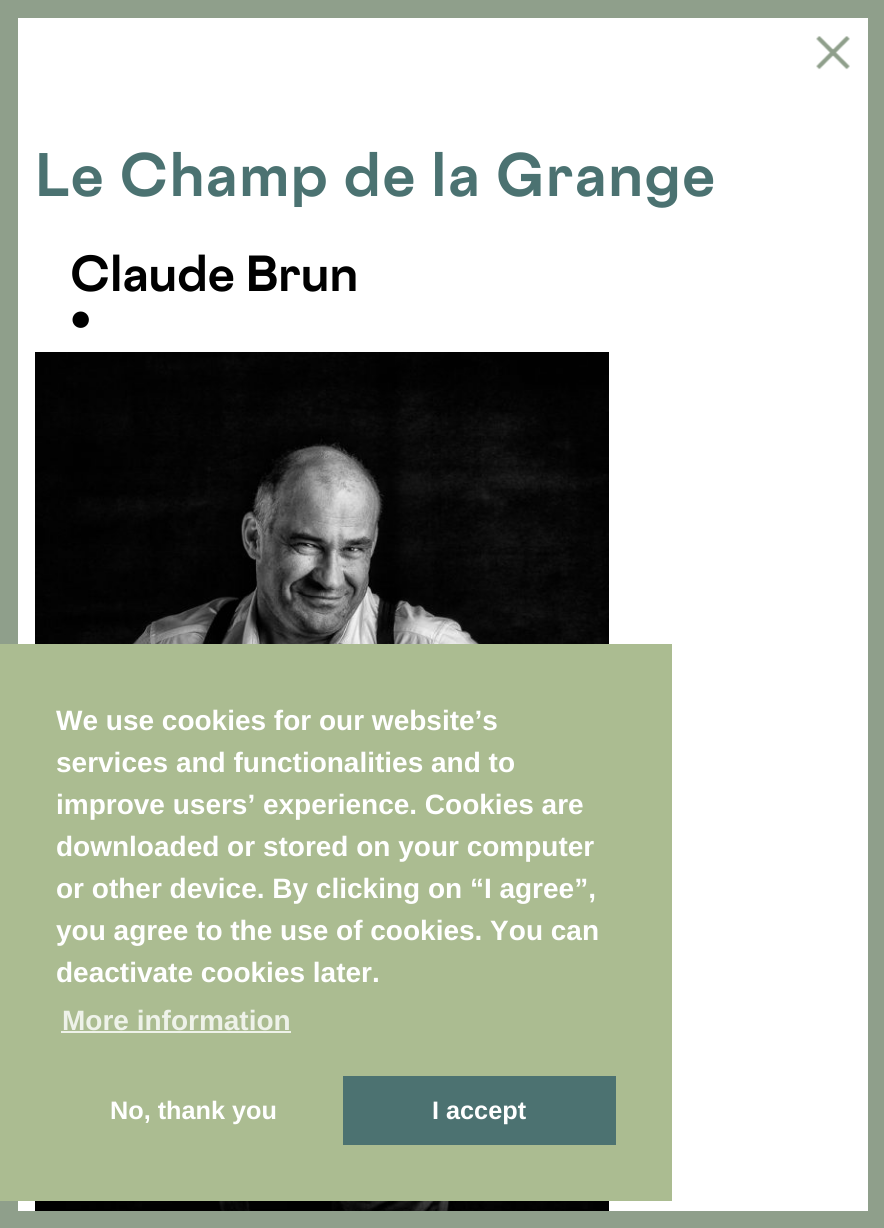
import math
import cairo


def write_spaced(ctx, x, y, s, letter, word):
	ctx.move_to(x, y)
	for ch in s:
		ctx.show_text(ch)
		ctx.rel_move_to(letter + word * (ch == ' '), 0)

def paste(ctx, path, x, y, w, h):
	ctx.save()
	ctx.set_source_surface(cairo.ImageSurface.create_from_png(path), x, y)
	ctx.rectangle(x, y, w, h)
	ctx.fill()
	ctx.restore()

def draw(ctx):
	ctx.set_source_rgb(1, 1, 1)
	ctx.paint()
	ctx.rectangle(9, 9, 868, 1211)
	ctx.set_source_rgb(0.561, 0.624, 0.545)
	ctx.set_line_width(18)
	ctx.stroke()
	paste(ctx, 'media/1.png', 816, 36, 34, 34)
	ctx.select_font_face('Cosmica', cairo.FONT_SLANT_NORMAL, cairo.FONT_WEIGHT_BOLD)
	ctx.set_font_size(55.1)
	ctx.set_source_rgb(0.294, 0.447, 0.443)
	write_spaced(ctx, 35, 196, 'Le Champ de la Grange', 1.65, 0)
	ctx.set_font_size(45.5)
	ctx.set_source_rgb(0, 0, 0)
	ctx.move_to(70, 291)
	ctx.show_text('Claude Brun')
	ctx.move_to(70, 335)
	ctx.show_text('•')
	paste(ctx, 'media/2.png', 35, 352, 574, 859)
	ctx.set_source_rgb(0.671, 0.737, 0.569)
	ctx.rectangle(0, 644, 672, 557)
	ctx.fill()
	ctx.select_font_face('Liberation Sans', cairo.FONT_SLANT_NORMAL, cairo.FONT_WEIGHT_BOLD)
	ctx.set_font_size(28)
	ctx.set_source_rgb(1, 1, 1)
	for x, y, s in [
		(56, 730, 'We use cookies for our website’s'),
		(56, 772, 'services and functionalities and to'),
		(56, 814, 'improve users’ experience. Cookies are'),
		(56, 856, 'downloaded or stored on your computer'),
		(56, 898, 'or other device. By clicking on “I agree”,'),
		(56, 940, 'you agree to the use of cookies. You can'),
		(56, 982, 'deactivate cookies later.'),
	]:
		ctx.move_to(x, y)
		ctx.show_text(s)
	ctx.set_source_rgb(0.933, 0.949, 0.914)
	ctx.move_to(62, 1030)
	ctx.show_text('More information')
	ctx.rectangle(61, 1031, 230, 2)
	ctx.fill()
	ctx.set_font_size(25.25)
	ctx.set_source_rgb(1, 1, 1)
	ctx.move_to(110, 1119)
	ctx.show_text('No, thank you')
	ctx.set_source_rgb(0.298, 0.447, 0.443)
	ctx.rectangle(343, 1076, 273, 69)
	ctx.fill()
	ctx.set_source_rgb(1, 1, 1)
	ctx.move_to(432, 1119)
	ctx.show_text('I accept')


surface = cairo.ImageSurface(cairo.FORMAT_RGB24, 884, 1228)
ctx = cairo.Context(surface)
options = cairo.FontOptions()
options.set_hint_metrics(cairo.HINT_METRICS_OFF)
options.set_hint_style(cairo.HINT_STYLE_NONE)
ctx.set_font_options(options)
ctx.set_miter_limit(4)
draw(ctx)
surface.write_to_png('image.png')
